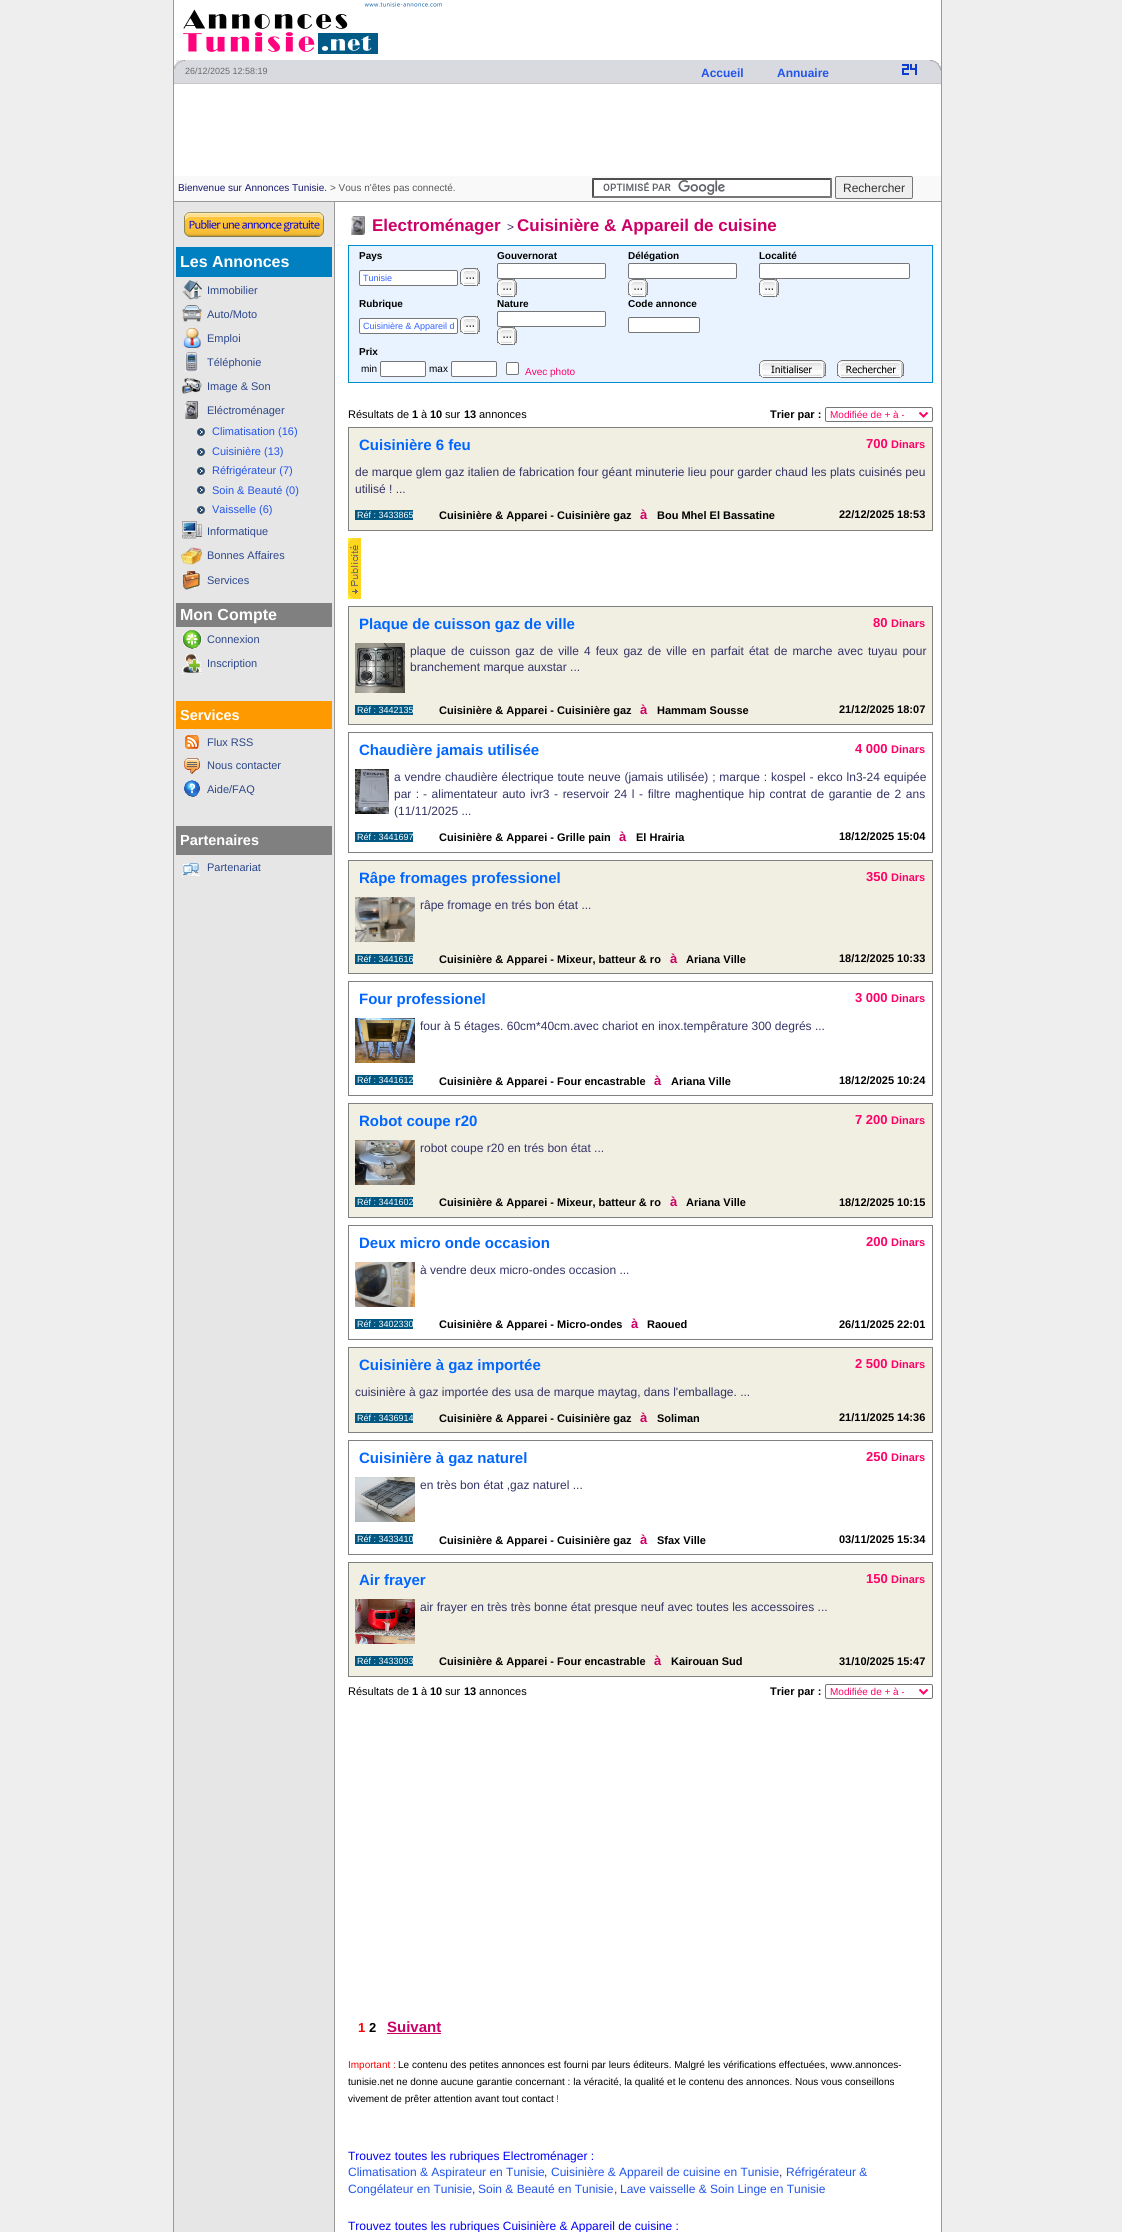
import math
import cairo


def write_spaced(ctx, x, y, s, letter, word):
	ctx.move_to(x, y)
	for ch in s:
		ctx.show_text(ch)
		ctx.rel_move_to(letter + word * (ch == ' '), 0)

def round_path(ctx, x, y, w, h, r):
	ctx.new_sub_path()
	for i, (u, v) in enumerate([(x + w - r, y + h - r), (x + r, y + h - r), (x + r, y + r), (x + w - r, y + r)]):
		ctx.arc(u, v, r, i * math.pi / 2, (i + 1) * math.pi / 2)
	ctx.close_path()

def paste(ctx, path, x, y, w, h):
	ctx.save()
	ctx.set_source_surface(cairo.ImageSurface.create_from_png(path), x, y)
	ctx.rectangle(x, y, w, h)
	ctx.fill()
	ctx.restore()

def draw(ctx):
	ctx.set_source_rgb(0.933, 0.933, 0.933)
	ctx.paint()
	ctx.set_source_rgb(1, 1, 1)
	ctx.rectangle(174, 0, 767, 2232)
	ctx.fill()
	ctx.set_source_rgb(0.6, 0.6, 0.6)
	ctx.rectangle(173, 0, 1, 2232)
	ctx.fill()
	paste(ctx, 'media/1.png', 183, 2, 259, 52)
	ctx.set_source_rgb(0.851, 0.855, 0.875)
	ctx.rectangle(174, 60, 767, 23)
	ctx.fill()
	paste(ctx, 'media/2.png', 174, 60, 11, 9)
	paste(ctx, 'media/3.png', 930, 60, 11, 10)
	ctx.select_font_face('Liberation Sans')
	ctx.set_font_size(9)
	ctx.set_source_rgb(0.412, 0.412, 0.412)
	ctx.move_to(185, 74)
	ctx.show_text('26/12/2025 12:58:19')
	ctx.select_font_face('Liberation Sans', cairo.FONT_SLANT_NORMAL, cairo.FONT_WEIGHT_BOLD)
	ctx.set_font_size(12)
	ctx.set_source_rgb(0.129, 0.329, 0.922)
	ctx.move_to(701, 77)
	ctx.show_text('Accueil')
	ctx.move_to(777, 77)
	ctx.show_text('Annuaire')
	paste(ctx, 'media/4.png', 902, 64, 15, 11)
	ctx.set_source_rgb(0.78, 0.78, 0.78)
	ctx.rectangle(174, 83, 767, 1)
	ctx.fill()
	ctx.set_source_rgb(0.973, 0.973, 0.973)
	ctx.rectangle(174, 176, 767, 25)
	ctx.fill()
	ctx.select_font_face('Liberation Sans')
	ctx.set_font_size(10)
	ctx.set_source_rgb(0.098, 0.098, 0.439)
	ctx.move_to(178, 191)
	ctx.show_text('Bienvenue sur Annonces Tunisie.')
	ctx.set_source_rgb(0.345, 0.345, 0.345)
	ctx.move_to(330, 191)
	ctx.show_text('> Vous n\'êtes pas connecté.')
	ctx.set_source_rgb(1, 1, 1)
	ctx.rectangle(592, 178, 240, 20)
	ctx.fill()
	paste(ctx, 'media/5.png', 603, 180, 122, 15)
	ctx.set_source_rgb(0.31, 0.31, 0.31)
	ctx.new_path()
	ctx.move_to(592, 178)
	ctx.line_to(832, 178)
	ctx.line_to(830, 180)
	ctx.line_to(594, 180)
	ctx.close_path()
	ctx.fill()
	ctx.set_source_rgb(0.463, 0.463, 0.463)
	ctx.new_path()
	ctx.move_to(832, 178)
	ctx.line_to(832, 198)
	ctx.line_to(830, 196)
	ctx.line_to(830, 180)
	ctx.close_path()
	ctx.fill()
	ctx.new_path()
	ctx.move_to(832, 198)
	ctx.line_to(592, 198)
	ctx.line_to(594, 196)
	ctx.line_to(830, 196)
	ctx.close_path()
	ctx.fill()
	ctx.set_source_rgb(0.31, 0.31, 0.31)
	ctx.new_path()
	ctx.move_to(592, 198)
	ctx.line_to(592, 178)
	ctx.line_to(594, 180)
	ctx.line_to(594, 196)
	ctx.close_path()
	ctx.fill()
	ctx.set_source_rgb(0.937, 0.937, 0.937)
	round_path(ctx, 835.5, 176.5, 77, 22, 1.5)
	ctx.fill_preserve()
	ctx.set_source_rgb(0.463, 0.463, 0.463)
	ctx.set_line_width(1)
	ctx.stroke()
	ctx.set_font_size(12)
	ctx.set_source_rgb(0.2, 0.2, 0.2)
	ctx.move_to(843, 192)
	ctx.show_text('Rechercher')
	ctx.set_source_rgb(0.6, 0.6, 0.6)
	ctx.rectangle(174, 201, 767, 1)
	ctx.fill()
	ctx.set_source_rgb(0.902, 0.902, 0.902)
	ctx.rectangle(174, 202, 160, 2030)
	ctx.fill()
	paste(ctx, 'media/6.png', 184, 212, 140, 25)
	ctx.set_source_rgb(0, 0.502, 0.753)
	ctx.rectangle(176, 247, 156, 30)
	ctx.fill()
	ctx.select_font_face('Liberation Sans', cairo.FONT_SLANT_NORMAL, cairo.FONT_WEIGHT_BOLD)
	ctx.set_font_size(16)
	ctx.set_source_rgb(1, 1, 1)
	ctx.move_to(180, 267)
	ctx.show_text('Les Annonces')
	paste(ctx, 'media/7.png', 182, 280, 20, 20)
	ctx.select_font_face('Liberation Sans')
	ctx.set_font_size(11)
	ctx.set_source_rgb(0.173, 0.278, 0.545)
	ctx.move_to(207, 294)
	ctx.show_text('Immobilier')
	paste(ctx, 'media/8.png', 182, 305, 20, 17)
	ctx.move_to(207, 318)
	ctx.show_text('Auto/Moto')
	paste(ctx, 'media/9.png', 183, 328, 18, 20)
	ctx.move_to(207, 342)
	ctx.show_text('Emploi')
	paste(ctx, 'media/10.png', 185, 352, 14, 20)
	ctx.move_to(207, 366)
	ctx.show_text('Téléphonie')
	paste(ctx, 'media/11.png', 182, 378, 20, 16)
	ctx.move_to(207, 390)
	ctx.show_text('Image & Son')
	paste(ctx, 'media/12.png', 185, 401, 13, 18)
	ctx.move_to(207, 414)
	ctx.show_text('Eléctroménager')
	paste(ctx, 'media/13.png', 197, 428, 8, 8)
	ctx.set_source_rgb(0.129, 0.329, 0.922)
	ctx.move_to(212, 435)
	ctx.show_text('Climatisation (16)')
	paste(ctx, 'media/13.png', 197, 448, 8, 8)
	ctx.move_to(212, 455)
	ctx.show_text('Cuisinière (13)')
	paste(ctx, 'media/13.png', 197, 467, 8, 8)
	ctx.move_to(212, 474)
	ctx.show_text('Réfrigérateur (7)')
	paste(ctx, 'media/13.png', 197, 486, 8, 8)
	ctx.move_to(212, 494)
	ctx.show_text('Soin & Beauté (0)')
	paste(ctx, 'media/13.png', 197, 506, 8, 8)
	ctx.move_to(212, 513)
	ctx.show_text('Vaisselle (6)')
	paste(ctx, 'media/14.png', 182, 521, 20, 18)
	ctx.set_source_rgb(0.173, 0.278, 0.545)
	ctx.move_to(207, 535)
	ctx.show_text('Informatique')
	paste(ctx, 'media/15.png', 181, 547, 21, 18)
	ctx.move_to(207, 559)
	ctx.show_text('Bonnes Affaires')
	paste(ctx, 'media/16.png', 183, 571, 17, 19)
	ctx.move_to(207, 584)
	ctx.show_text('Services')
	ctx.set_source_rgb(0.502, 0.502, 0.502)
	ctx.rectangle(176, 603, 156, 24)
	ctx.fill()
	ctx.select_font_face('Liberation Sans', cairo.FONT_SLANT_NORMAL, cairo.FONT_WEIGHT_BOLD)
	ctx.set_font_size(16)
	ctx.set_source_rgb(1, 1, 1)
	ctx.move_to(180, 620)
	ctx.show_text('Mon Compte')
	paste(ctx, 'media/17.png', 182, 630, 20, 19)
	ctx.select_font_face('Liberation Sans')
	ctx.set_font_size(11)
	ctx.set_source_rgb(0.173, 0.278, 0.545)
	ctx.move_to(207, 643)
	ctx.show_text('Connexion')
	paste(ctx, 'media/18.png', 182, 654, 20, 20)
	ctx.move_to(207, 667)
	ctx.show_text('Inscription')
	ctx.set_source_rgb(1, 0.6, 0)
	ctx.rectangle(176, 701, 156, 28)
	ctx.fill()
	ctx.select_font_face('Liberation Sans', cairo.FONT_SLANT_NORMAL, cairo.FONT_WEIGHT_BOLD)
	ctx.set_font_size(14.5)
	ctx.set_source_rgb(1, 1, 1)
	ctx.move_to(180, 720)
	ctx.show_text('Services')
	paste(ctx, 'media/19.png', 185, 735, 14, 14)
	ctx.select_font_face('Liberation Sans')
	ctx.set_font_size(11)
	ctx.set_source_rgb(0.173, 0.278, 0.545)
	ctx.move_to(207, 746)
	ctx.show_text('Flux RSS')
	paste(ctx, 'media/20.png', 184, 758, 16, 16)
	ctx.move_to(207, 769)
	ctx.show_text('Nous contacter')
	paste(ctx, 'media/21.png', 184, 780, 16, 17)
	ctx.move_to(207, 793)
	ctx.show_text('Aide/FAQ')
	ctx.set_source_rgb(0.502, 0.502, 0.502)
	ctx.rectangle(176, 826, 156, 29)
	ctx.fill()
	ctx.select_font_face('Liberation Sans', cairo.FONT_SLANT_NORMAL, cairo.FONT_WEIGHT_BOLD)
	ctx.set_font_size(14.5)
	ctx.set_source_rgb(1, 1, 1)
	ctx.move_to(180, 845)
	ctx.show_text('Partenaires')
	paste(ctx, 'media/22.png', 182, 863, 18, 14)
	ctx.select_font_face('Liberation Sans')
	ctx.set_font_size(11)
	ctx.set_source_rgb(0.173, 0.278, 0.545)
	ctx.move_to(207, 871)
	ctx.show_text('Partenariat')
	ctx.set_source_rgb(0.6, 0.6, 0.6)
	ctx.rectangle(334, 202, 1, 2030)
	ctx.fill()
	paste(ctx, 'media/23.png', 351, 216, 14, 19)
	ctx.select_font_face('Liberation Sans', cairo.FONT_SLANT_NORMAL, cairo.FONT_WEIGHT_BOLD)
	ctx.set_font_size(17)
	ctx.set_source_rgb(0.8, 0, 0.4)
	ctx.move_to(372, 231)
	ctx.show_text('Electroménager')
	ctx.select_font_face('Liberation Sans')
	ctx.set_font_size(12)
	ctx.set_source_rgb(0.2, 0.2, 0.4)
	ctx.move_to(507, 231)
	ctx.show_text('>')
	ctx.select_font_face('Liberation Sans', cairo.FONT_SLANT_NORMAL, cairo.FONT_WEIGHT_BOLD)
	ctx.set_font_size(17)
	ctx.set_source_rgb(0.8, 0, 0.4)
	ctx.move_to(517, 231)
	ctx.show_text('Cuisinière & Appareil de cuisine')
	ctx.set_source_rgb(0.91, 0.953, 1)
	ctx.rectangle(348.5, 245.5, 584, 137)
	ctx.fill_preserve()
	ctx.set_source_rgb(0, 0.557, 0.824)
	ctx.stroke()
	ctx.set_font_size(10)
	ctx.set_source_rgb(0, 0, 0)
	for x, y, s in [
		(359, 259, 'Pays'),
		(497, 259, 'Gouvernorat'),
		(628, 259, 'Délégation'),
		(759, 259, 'Localité'),
	]:
		ctx.move_to(x, y)
		ctx.show_text(s)
	ctx.set_source_rgb(1, 1, 1)
	round_path(ctx, 359.5, 270.5, 98, 15, 1.5)
	ctx.fill_preserve()
	ctx.set_source_rgb(0.463, 0.463, 0.463)
	ctx.stroke()
	ctx.select_font_face('Liberation Sans')
	ctx.set_font_size(9)
	ctx.set_source_rgb(0.188, 0.384, 1)
	ctx.move_to(363, 281)
	ctx.show_text('Tunisie')
	paste(ctx, 'media/24.png', 460, 268, 20, 18)
	ctx.set_source_rgb(1, 1, 1)
	round_path(ctx, 497.5, 263.5, 108, 15, 1.5)
	ctx.fill_preserve()
	ctx.set_source_rgb(0.463, 0.463, 0.463)
	ctx.stroke()
	paste(ctx, 'media/24.png', 497, 279, 20, 18)
	ctx.set_source_rgb(1, 1, 1)
	round_path(ctx, 628.5, 263.5, 108, 15, 1.5)
	ctx.fill_preserve()
	ctx.set_source_rgb(0.463, 0.463, 0.463)
	ctx.stroke()
	paste(ctx, 'media/24.png', 628, 279, 20, 18)
	ctx.set_source_rgb(1, 1, 1)
	round_path(ctx, 759.5, 263.5, 150, 15, 1.5)
	ctx.fill_preserve()
	ctx.set_source_rgb(0.463, 0.463, 0.463)
	ctx.stroke()
	paste(ctx, 'media/24.png', 759, 279, 20, 18)
	ctx.select_font_face('Liberation Sans', cairo.FONT_SLANT_NORMAL, cairo.FONT_WEIGHT_BOLD)
	ctx.set_font_size(10)
	ctx.set_source_rgb(0, 0, 0)
	for x, y, s in [
		(359, 307, 'Rubrique'),
		(497, 307, 'Nature'),
		(628, 307, 'Code annonce'),
	]:
		ctx.move_to(x, y)
		ctx.show_text(s)
	ctx.set_source_rgb(1, 1, 1)
	round_path(ctx, 359.5, 318.5, 98, 15, 1.5)
	ctx.fill_preserve()
	ctx.set_source_rgb(0.463, 0.463, 0.463)
	ctx.stroke()
	ctx.select_font_face('Liberation Sans')
	ctx.set_font_size(9)
	ctx.set_source_rgb(0.188, 0.384, 1)
	ctx.move_to(363, 329)
	ctx.show_text('Cuisinière & Appareil d')
	paste(ctx, 'media/24.png', 460, 316, 20, 18)
	ctx.set_source_rgb(1, 1, 1)
	round_path(ctx, 497.5, 311.5, 108, 15, 1.5)
	ctx.fill_preserve()
	ctx.set_source_rgb(0.463, 0.463, 0.463)
	ctx.stroke()
	paste(ctx, 'media/24.png', 497, 327, 20, 18)
	ctx.set_source_rgb(1, 1, 1)
	round_path(ctx, 628.5, 317.5, 71, 15, 1.5)
	ctx.fill_preserve()
	ctx.set_source_rgb(0.463, 0.463, 0.463)
	ctx.stroke()
	ctx.select_font_face('Liberation Sans', cairo.FONT_SLANT_NORMAL, cairo.FONT_WEIGHT_BOLD)
	ctx.set_font_size(10)
	ctx.set_source_rgb(0, 0, 0)
	ctx.move_to(359, 355)
	ctx.show_text('Prix')
	ctx.select_font_face('Liberation Sans')
	ctx.move_to(361, 372)
	ctx.show_text('min')
	ctx.set_source_rgb(1, 1, 1)
	round_path(ctx, 380.5, 361.5, 45, 15, 1.5)
	ctx.fill_preserve()
	ctx.set_source_rgb(0.463, 0.463, 0.463)
	ctx.stroke()
	ctx.set_source_rgb(0, 0, 0)
	ctx.move_to(429, 372)
	ctx.show_text('max')
	ctx.set_source_rgb(1, 1, 1)
	round_path(ctx, 451.5, 361.5, 45, 15, 1.5)
	ctx.fill_preserve()
	ctx.set_source_rgb(0.463, 0.463, 0.463)
	ctx.stroke()
	ctx.set_source_rgb(1, 1, 1)
	round_path(ctx, 506.5, 362.5, 12, 12, 1.5)
	ctx.fill_preserve()
	ctx.set_source_rgb(0.463, 0.463, 0.463)
	ctx.stroke()
	ctx.set_source_rgb(1, 0, 0.4)
	ctx.move_to(525, 375)
	ctx.show_text('Avec photo')
	paste(ctx, 'media/25.png', 759, 360, 67, 18)
	paste(ctx, 'media/26.png', 837, 360, 67, 18)
	ctx.set_font_size(11)
	ctx.set_source_rgb(0, 0, 0)
	ctx.move_to(348, 418)
	ctx.show_text('Résultats de')
	ctx.select_font_face('Liberation Sans', cairo.FONT_SLANT_NORMAL, cairo.FONT_WEIGHT_BOLD)
	ctx.move_to(412, 418)
	ctx.show_text('1')
	ctx.select_font_face('Liberation Sans')
	ctx.move_to(421, 418)
	ctx.show_text('à')
	ctx.select_font_face('Liberation Sans', cairo.FONT_SLANT_NORMAL, cairo.FONT_WEIGHT_BOLD)
	ctx.move_to(430, 418)
	ctx.show_text('10')
	ctx.select_font_face('Liberation Sans')
	ctx.move_to(445, 418)
	ctx.show_text('sur')
	ctx.select_font_face('Liberation Sans', cairo.FONT_SLANT_NORMAL, cairo.FONT_WEIGHT_BOLD)
	ctx.move_to(464, 418)
	ctx.show_text('13')
	ctx.select_font_face('Liberation Sans')
	ctx.move_to(479, 418)
	ctx.show_text('annonces')
	ctx.select_font_face('Liberation Sans', cairo.FONT_SLANT_NORMAL, cairo.FONT_WEIGHT_BOLD)
	ctx.move_to(770, 418)
	ctx.show_text('Trier par :')
	round_path(ctx, 825.5, 407.5, 107, 14, 1.5)
	ctx.set_source_rgb(0.463, 0.463, 0.463)
	ctx.stroke()
	ctx.new_path()
	ctx.move_to(919.5, 412.5)
	ctx.line_to(923.5, 416.5)
	ctx.line_to(927.5, 412.5)
	ctx.set_source_rgb(1, 0, 0.4)
	ctx.set_line_width(2)
	ctx.stroke()
	ctx.select_font_face('Liberation Sans')
	ctx.set_font_size(10)
	ctx.move_to(830, 418)
	ctx.show_text('Modifiée de + à -')
	ctx.set_source_rgb(0.945, 0.937, 0.886)
	ctx.rectangle(348.5, 427.5, 584, 103)
	ctx.fill_preserve()
	ctx.set_source_rgb(0.502, 0.502, 0.502)
	ctx.set_line_width(1)
	ctx.stroke()
	ctx.select_font_face('Liberation Sans', cairo.FONT_SLANT_NORMAL, cairo.FONT_WEIGHT_BOLD)
	ctx.set_font_size(15)
	ctx.set_source_rgb(0, 0.4, 1)
	ctx.move_to(359, 450)
	ctx.show_text('Cuisinière 6 feu')
	ctx.set_font_size(13)
	ctx.set_source_rgb(1, 0, 0.4)
	ctx.move_to(866, 448)
	ctx.show_text('700')
	ctx.set_font_size(11)
	ctx.move_to(891, 448)
	ctx.show_text('Dinars')
	ctx.select_font_face('Liberation Sans')
	ctx.set_font_size(12)
	ctx.set_source_rgb(0.2, 0.2, 0.4)
	ctx.move_to(355, 476)
	ctx.show_text('de marque glem gaz italien de fabrication four géant minuterie lieu pour garder chaud les plats cuisinés peu')
	ctx.move_to(355, 493)
	ctx.show_text('utilisé ! ...')
	ctx.set_source_rgb(0, 0.341, 0.51)
	ctx.rectangle(355, 510, 58, 10)
	ctx.fill()
	ctx.set_font_size(9)
	ctx.set_source_rgb(1, 1, 1)
	ctx.move_to(357, 518)
	ctx.show_text('Réf : 3433865')
	ctx.select_font_face('Liberation Sans', cairo.FONT_SLANT_NORMAL, cairo.FONT_WEIGHT_BOLD)
	ctx.set_font_size(11)
	ctx.set_source_rgb(0, 0, 0)
	ctx.move_to(439, 519)
	ctx.show_text('Cuisinière & Apparei - Cuisinière gaz')
	ctx.set_font_size(13)
	ctx.set_source_rgb(0.8, 0, 0.4)
	ctx.move_to(640, 519)
	ctx.show_text('à')
	ctx.set_font_size(11)
	ctx.set_source_rgb(0, 0, 0)
	ctx.move_to(657, 519)
	ctx.show_text('Bou Mhel El Bassatine')
	ctx.move_to(839, 518)
	ctx.show_text('22/12/2025 18:53')
	paste(ctx, 'media/27.png', 348, 538, 13, 61)
	ctx.set_source_rgb(0.945, 0.937, 0.886)
	ctx.rectangle(348.5, 606.5, 584, 118)
	ctx.fill_preserve()
	ctx.set_source_rgb(0.502, 0.502, 0.502)
	ctx.stroke()
	ctx.set_font_size(15)
	ctx.set_source_rgb(0, 0.4, 1)
	ctx.move_to(359, 629)
	ctx.show_text('Plaque de cuisson gaz de ville')
	ctx.set_font_size(13)
	ctx.set_source_rgb(1, 0, 0.4)
	ctx.move_to(873, 627)
	ctx.show_text('80')
	ctx.set_font_size(11)
	ctx.move_to(891, 627)
	ctx.show_text('Dinars')
	paste(ctx, 'media/28.png', 355, 643, 50, 50)
	ctx.select_font_face('Liberation Sans')
	ctx.set_font_size(12)
	ctx.set_source_rgb(0.2, 0.2, 0.4)
	write_spaced(ctx, 410, 655, 'plaque de cuisson gaz de ville 4 feux gaz de ville en parfait état de marche avec tuyau pour', 0, 1.75)
	ctx.move_to(410, 671)
	ctx.show_text('branchement marque auxstar ...')
	ctx.set_source_rgb(0, 0.341, 0.51)
	ctx.rectangle(355, 705, 58, 10)
	ctx.fill()
	ctx.set_font_size(9)
	ctx.set_source_rgb(1, 1, 1)
	ctx.move_to(357, 713)
	ctx.show_text('Réf : 3442135')
	ctx.select_font_face('Liberation Sans', cairo.FONT_SLANT_NORMAL, cairo.FONT_WEIGHT_BOLD)
	ctx.set_font_size(11)
	ctx.set_source_rgb(0, 0, 0)
	ctx.move_to(439, 714)
	ctx.show_text('Cuisinière & Apparei - Cuisinière gaz')
	ctx.set_font_size(13)
	ctx.set_source_rgb(0.8, 0, 0.4)
	ctx.move_to(640, 714)
	ctx.show_text('à')
	ctx.set_font_size(11)
	ctx.set_source_rgb(0, 0, 0)
	ctx.move_to(657, 714)
	ctx.show_text('Hammam Sousse')
	ctx.move_to(839, 713)
	ctx.show_text('21/12/2025 18:07')
	ctx.rectangle(348.5, 732.5, 584, 120)
	ctx.set_source_rgb(0.502, 0.502, 0.502)
	ctx.stroke()
	ctx.set_font_size(15)
	ctx.set_source_rgb(0, 0.4, 1)
	ctx.move_to(359, 755)
	ctx.show_text('Chaudière jamais utilisée')
	ctx.set_font_size(13)
	ctx.set_source_rgb(1, 0, 0.4)
	ctx.move_to(855, 753)
	ctx.show_text('4 000')
	ctx.set_font_size(11)
	ctx.move_to(891, 753)
	ctx.show_text('Dinars')
	paste(ctx, 'media/29.png', 355, 769, 34, 45)
	ctx.select_font_face('Liberation Sans')
	ctx.set_font_size(12)
	ctx.set_source_rgb(0.2, 0.2, 0.4)
	write_spaced(ctx, 394, 781, 'a vendre chaudière électrique toute neuve (jamais utilisée) ; marque : kospel - ekco ln3-24 equipée', 0, 0.5)
	write_spaced(ctx, 394, 798, 'par :', 0, 1)
	write_spaced(ctx, 423, 798, '- alimentateur auto ivr3 - reservoir 24 l - filtre maghentique hip contrat de garantie de 2 ans', 0, 1.25)
	ctx.move_to(394, 815)
	ctx.show_text('(11/11/2025 ...')
	ctx.set_source_rgb(0, 0.341, 0.51)
	ctx.rectangle(355, 832, 58, 10)
	ctx.fill()
	ctx.set_font_size(9)
	ctx.set_source_rgb(1, 1, 1)
	ctx.move_to(357, 840)
	ctx.show_text('Réf : 3441697')
	ctx.select_font_face('Liberation Sans', cairo.FONT_SLANT_NORMAL, cairo.FONT_WEIGHT_BOLD)
	ctx.set_font_size(11)
	ctx.set_source_rgb(0, 0, 0)
	ctx.move_to(439, 841)
	ctx.show_text('Cuisinière & Apparei - Grille pain')
	ctx.set_font_size(13)
	ctx.set_source_rgb(0.8, 0, 0.4)
	ctx.move_to(619, 841)
	ctx.show_text('à')
	ctx.set_font_size(11)
	ctx.set_source_rgb(0, 0, 0)
	ctx.move_to(636, 841)
	ctx.show_text('El Hrairia')
	ctx.move_to(839, 840)
	ctx.show_text('18/12/2025 15:04')
	ctx.set_source_rgb(0.945, 0.937, 0.886)
	ctx.rectangle(348.5, 860.5, 584, 113)
	ctx.fill_preserve()
	ctx.set_source_rgb(0.502, 0.502, 0.502)
	ctx.stroke()
	ctx.set_font_size(15)
	ctx.set_source_rgb(0, 0.4, 1)
	ctx.move_to(359, 883)
	ctx.show_text('Râpe fromages professionel')
	ctx.set_font_size(13)
	ctx.set_source_rgb(1, 0, 0.4)
	ctx.move_to(866, 881)
	ctx.show_text('350')
	ctx.set_font_size(11)
	ctx.move_to(891, 881)
	ctx.show_text('Dinars')
	paste(ctx, 'media/30.png', 355, 897, 60, 45)
	ctx.select_font_face('Liberation Sans')
	ctx.set_font_size(12)
	ctx.set_source_rgb(0.2, 0.2, 0.4)
	ctx.move_to(420, 909)
	ctx.show_text('râpe fromage en trés bon état ...')
	ctx.set_source_rgb(0, 0.341, 0.51)
	ctx.rectangle(355, 954, 58, 10)
	ctx.fill()
	ctx.set_font_size(9)
	ctx.set_source_rgb(1, 1, 1)
	ctx.move_to(357, 962)
	ctx.show_text('Réf : 3441616')
	ctx.select_font_face('Liberation Sans', cairo.FONT_SLANT_NORMAL, cairo.FONT_WEIGHT_BOLD)
	ctx.set_font_size(11)
	ctx.set_source_rgb(0, 0, 0)
	ctx.move_to(439, 963)
	ctx.show_text('Cuisinière & Apparei - Mixeur, batteur & ro')
	ctx.set_font_size(13)
	ctx.set_source_rgb(0.8, 0, 0.4)
	ctx.move_to(670, 963)
	ctx.show_text('à')
	ctx.set_font_size(11)
	ctx.set_source_rgb(0, 0, 0)
	ctx.move_to(686, 963)
	ctx.show_text('Ariana Ville')
	ctx.move_to(839, 962)
	ctx.show_text('18/12/2025 10:33')
	ctx.rectangle(348.5, 981.5, 584, 114)
	ctx.set_source_rgb(0.502, 0.502, 0.502)
	ctx.stroke()
	ctx.set_font_size(15)
	ctx.set_source_rgb(0, 0.4, 1)
	ctx.move_to(359, 1004)
	ctx.show_text('Four professionel')
	ctx.set_font_size(13)
	ctx.set_source_rgb(1, 0, 0.4)
	ctx.move_to(855, 1002)
	ctx.show_text('3 000')
	ctx.set_font_size(11)
	ctx.move_to(891, 1002)
	ctx.show_text('Dinars')
	paste(ctx, 'media/31.png', 355, 1018, 60, 45)
	ctx.select_font_face('Liberation Sans')
	ctx.set_font_size(12)
	ctx.set_source_rgb(0.2, 0.2, 0.4)
	ctx.move_to(420, 1030)
	ctx.show_text('four à 5 étages. 60cm*40cm.avec chariot en inox.tempêrature 300 degrés ...')
	ctx.set_source_rgb(0, 0.341, 0.51)
	ctx.rectangle(355, 1075, 58, 10)
	ctx.fill()
	ctx.set_font_size(9)
	ctx.set_source_rgb(1, 1, 1)
	ctx.move_to(357, 1083)
	ctx.show_text('Réf : 3441612')
	ctx.select_font_face('Liberation Sans', cairo.FONT_SLANT_NORMAL, cairo.FONT_WEIGHT_BOLD)
	ctx.set_font_size(11)
	ctx.set_source_rgb(0, 0, 0)
	ctx.move_to(439, 1085)
	ctx.show_text('Cuisinière & Apparei - Four encastrable')
	ctx.set_font_size(13)
	ctx.set_source_rgb(0.8, 0, 0.4)
	ctx.move_to(654, 1085)
	ctx.show_text('à')
	ctx.set_font_size(11)
	ctx.set_source_rgb(0, 0, 0)
	ctx.move_to(671, 1085)
	ctx.show_text('Ariana Ville')
	ctx.move_to(839, 1084)
	ctx.show_text('18/12/2025 10:24')
	ctx.set_source_rgb(0.945, 0.937, 0.886)
	ctx.rectangle(348.5, 1103.5, 584, 114)
	ctx.fill_preserve()
	ctx.set_source_rgb(0.502, 0.502, 0.502)
	ctx.stroke()
	ctx.set_font_size(15)
	ctx.set_source_rgb(0, 0.4, 1)
	ctx.move_to(359, 1126)
	ctx.show_text('Robot coupe r20')
	ctx.set_font_size(13)
	ctx.set_source_rgb(1, 0, 0.4)
	ctx.move_to(855, 1124)
	ctx.show_text('7 200')
	ctx.set_font_size(11)
	ctx.move_to(891, 1124)
	ctx.show_text('Dinars')
	paste(ctx, 'media/32.png', 355, 1140, 60, 45)
	ctx.select_font_face('Liberation Sans')
	ctx.set_font_size(12)
	ctx.set_source_rgb(0.2, 0.2, 0.4)
	ctx.move_to(420, 1152)
	ctx.show_text('robot coupe r20 en trés bon état ...')
	ctx.set_source_rgb(0, 0.341, 0.51)
	ctx.rectangle(355, 1197, 58, 10)
	ctx.fill()
	ctx.set_font_size(9)
	ctx.set_source_rgb(1, 1, 1)
	ctx.move_to(357, 1205)
	ctx.show_text('Réf : 3441602')
	ctx.select_font_face('Liberation Sans', cairo.FONT_SLANT_NORMAL, cairo.FONT_WEIGHT_BOLD)
	ctx.set_font_size(11)
	ctx.set_source_rgb(0, 0, 0)
	ctx.move_to(439, 1206)
	ctx.show_text('Cuisinière & Apparei - Mixeur, batteur & ro')
	ctx.set_font_size(13)
	ctx.set_source_rgb(0.8, 0, 0.4)
	ctx.move_to(670, 1206)
	ctx.show_text('à')
	ctx.set_font_size(11)
	ctx.set_source_rgb(0, 0, 0)
	ctx.move_to(686, 1206)
	ctx.show_text('Ariana Ville')
	ctx.move_to(839, 1206)
	ctx.show_text('18/12/2025 10:15')
	ctx.rectangle(348.5, 1225.5, 584, 114)
	ctx.set_source_rgb(0.502, 0.502, 0.502)
	ctx.stroke()
	ctx.set_font_size(15)
	ctx.set_source_rgb(0, 0.4, 1)
	ctx.move_to(359, 1248)
	ctx.show_text('Deux micro onde occasion')
	ctx.set_font_size(13)
	ctx.set_source_rgb(1, 0, 0.4)
	ctx.move_to(866, 1246)
	ctx.show_text('200')
	ctx.set_font_size(11)
	ctx.move_to(891, 1246)
	ctx.show_text('Dinars')
	paste(ctx, 'media/33.png', 355, 1262, 60, 45)
	ctx.select_font_face('Liberation Sans')
	ctx.set_font_size(12)
	ctx.set_source_rgb(0.2, 0.2, 0.4)
	ctx.move_to(420, 1274)
	ctx.show_text('à vendre deux micro-ondes occasion ...')
	ctx.set_source_rgb(0, 0.341, 0.51)
	ctx.rectangle(355, 1319, 58, 10)
	ctx.fill()
	ctx.set_font_size(9)
	ctx.set_source_rgb(1, 1, 1)
	ctx.move_to(357, 1327)
	ctx.show_text('Réf : 3402330')
	ctx.select_font_face('Liberation Sans', cairo.FONT_SLANT_NORMAL, cairo.FONT_WEIGHT_BOLD)
	ctx.set_font_size(11)
	ctx.set_source_rgb(0, 0, 0)
	ctx.move_to(439, 1328)
	ctx.show_text('Cuisinière & Apparei - Micro-ondes')
	ctx.set_font_size(13)
	ctx.set_source_rgb(0.8, 0, 0.4)
	ctx.move_to(631, 1328)
	ctx.show_text('à')
	ctx.set_font_size(11)
	ctx.set_source_rgb(0, 0, 0)
	ctx.move_to(647, 1328)
	ctx.show_text('Raoued')
	ctx.move_to(839, 1328)
	ctx.show_text('26/11/2025 22:01')
	ctx.set_source_rgb(0.945, 0.937, 0.886)
	ctx.rectangle(348.5, 1347.5, 584, 85)
	ctx.fill_preserve()
	ctx.set_source_rgb(0.502, 0.502, 0.502)
	ctx.stroke()
	ctx.set_font_size(15)
	ctx.set_source_rgb(0, 0.4, 1)
	ctx.move_to(359, 1370)
	ctx.show_text('Cuisinière à gaz importée')
	ctx.set_font_size(13)
	ctx.set_source_rgb(1, 0, 0.4)
	ctx.move_to(855, 1368)
	ctx.show_text('2 500')
	ctx.set_font_size(11)
	ctx.move_to(891, 1368)
	ctx.show_text('Dinars')
	ctx.select_font_face('Liberation Sans')
	ctx.set_font_size(12)
	ctx.set_source_rgb(0.2, 0.2, 0.4)
	ctx.move_to(355, 1396)
	ctx.show_text('cuisinière à gaz importée des usa de marque maytag, dans l\'emballage. ...')
	ctx.set_source_rgb(0, 0.341, 0.51)
	ctx.rectangle(355, 1413, 58, 10)
	ctx.fill()
	ctx.set_font_size(9)
	ctx.set_source_rgb(1, 1, 1)
	ctx.move_to(357, 1421)
	ctx.show_text('Réf : 3436914')
	ctx.select_font_face('Liberation Sans', cairo.FONT_SLANT_NORMAL, cairo.FONT_WEIGHT_BOLD)
	ctx.set_font_size(11)
	ctx.set_source_rgb(0, 0, 0)
	ctx.move_to(439, 1422)
	ctx.show_text('Cuisinière & Apparei - Cuisinière gaz')
	ctx.set_font_size(13)
	ctx.set_source_rgb(0.8, 0, 0.4)
	ctx.move_to(640, 1422)
	ctx.show_text('à')
	ctx.set_font_size(11)
	ctx.set_source_rgb(0, 0, 0)
	ctx.move_to(657, 1422)
	ctx.show_text('Soliman')
	ctx.move_to(839, 1421)
	ctx.show_text('21/11/2025 14:36')
	ctx.rectangle(348.5, 1440.5, 584, 114)
	ctx.set_source_rgb(0.502, 0.502, 0.502)
	ctx.stroke()
	ctx.set_font_size(15)
	ctx.set_source_rgb(0, 0.4, 1)
	ctx.move_to(359, 1463)
	ctx.show_text('Cuisinière à gaz naturel')
	ctx.set_font_size(13)
	ctx.set_source_rgb(1, 0, 0.4)
	ctx.move_to(866, 1461)
	ctx.show_text('250')
	ctx.set_font_size(11)
	ctx.move_to(891, 1461)
	ctx.show_text('Dinars')
	paste(ctx, 'media/34.png', 355, 1477, 60, 45)
	ctx.select_font_face('Liberation Sans')
	ctx.set_font_size(12)
	ctx.set_source_rgb(0.2, 0.2, 0.4)
	ctx.move_to(420, 1489)
	ctx.show_text('en très bon état ,gaz naturel ...')
	ctx.set_source_rgb(0, 0.341, 0.51)
	ctx.rectangle(355, 1534, 58, 10)
	ctx.fill()
	ctx.set_font_size(9)
	ctx.set_source_rgb(1, 1, 1)
	ctx.move_to(357, 1542)
	ctx.show_text('Réf : 3433410')
	ctx.select_font_face('Liberation Sans', cairo.FONT_SLANT_NORMAL, cairo.FONT_WEIGHT_BOLD)
	ctx.set_font_size(11)
	ctx.set_source_rgb(0, 0, 0)
	ctx.move_to(439, 1544)
	ctx.show_text('Cuisinière & Apparei - Cuisinière gaz')
	ctx.set_font_size(13)
	ctx.set_source_rgb(0.8, 0, 0.4)
	ctx.move_to(640, 1544)
	ctx.show_text('à')
	ctx.set_font_size(11)
	ctx.set_source_rgb(0, 0, 0)
	ctx.move_to(657, 1544)
	ctx.show_text('Sfax Ville')
	ctx.move_to(839, 1543)
	ctx.show_text('03/11/2025 15:34')
	ctx.set_source_rgb(0.945, 0.937, 0.886)
	ctx.rectangle(348.5, 1562.5, 584, 114)
	ctx.fill_preserve()
	ctx.set_source_rgb(0.502, 0.502, 0.502)
	ctx.stroke()
	ctx.set_font_size(15)
	ctx.set_source_rgb(0, 0.4, 1)
	ctx.move_to(359, 1585)
	ctx.show_text('Air frayer')
	ctx.set_font_size(13)
	ctx.set_source_rgb(1, 0, 0.4)
	ctx.move_to(866, 1583)
	ctx.show_text('150')
	ctx.set_font_size(11)
	ctx.move_to(891, 1583)
	ctx.show_text('Dinars')
	paste(ctx, 'media/35.png', 355, 1599, 60, 45)
	ctx.select_font_face('Liberation Sans')
	ctx.set_font_size(12)
	ctx.set_source_rgb(0.2, 0.2, 0.4)
	ctx.move_to(420, 1611)
	ctx.show_text('air frayer en très très bonne état presque neuf avec toutes les accessoires ...')
	ctx.set_source_rgb(0, 0.341, 0.51)
	ctx.rectangle(355, 1656, 58, 10)
	ctx.fill()
	ctx.set_font_size(9)
	ctx.set_source_rgb(1, 1, 1)
	ctx.move_to(357, 1664)
	ctx.show_text('Réf : 3433093')
	ctx.select_font_face('Liberation Sans', cairo.FONT_SLANT_NORMAL, cairo.FONT_WEIGHT_BOLD)
	ctx.set_font_size(11)
	ctx.set_source_rgb(0, 0, 0)
	ctx.move_to(439, 1665)
	ctx.show_text('Cuisinière & Apparei - Four encastrable')
	ctx.set_font_size(13)
	ctx.set_source_rgb(0.8, 0, 0.4)
	ctx.move_to(654, 1665)
	ctx.show_text('à')
	ctx.set_font_size(11)
	ctx.set_source_rgb(0, 0, 0)
	ctx.move_to(671, 1665)
	ctx.show_text('Kairouan Sud')
	ctx.move_to(839, 1665)
	ctx.show_text('31/10/2025 15:47')
	ctx.select_font_face('Liberation Sans')
	ctx.move_to(348, 1695)
	ctx.show_text('Résultats de')
	ctx.select_font_face('Liberation Sans', cairo.FONT_SLANT_NORMAL, cairo.FONT_WEIGHT_BOLD)
	ctx.move_to(412, 1695)
	ctx.show_text('1')
	ctx.select_font_face('Liberation Sans')
	ctx.move_to(421, 1695)
	ctx.show_text('à')
	ctx.select_font_face('Liberation Sans', cairo.FONT_SLANT_NORMAL, cairo.FONT_WEIGHT_BOLD)
	ctx.move_to(430, 1695)
	ctx.show_text('10')
	ctx.select_font_face('Liberation Sans')
	ctx.move_to(445, 1695)
	ctx.show_text('sur')
	ctx.select_font_face('Liberation Sans', cairo.FONT_SLANT_NORMAL, cairo.FONT_WEIGHT_BOLD)
	ctx.move_to(464, 1695)
	ctx.show_text('13')
	ctx.select_font_face('Liberation Sans')
	ctx.move_to(479, 1695)
	ctx.show_text('annonces')
	ctx.select_font_face('Liberation Sans', cairo.FONT_SLANT_NORMAL, cairo.FONT_WEIGHT_BOLD)
	ctx.move_to(770, 1695)
	ctx.show_text('Trier par :')
	round_path(ctx, 825.5, 1684.5, 107, 14, 1.5)
	ctx.set_source_rgb(0.463, 0.463, 0.463)
	ctx.stroke()
	ctx.new_path()
	ctx.move_to(919.5, 1689.5)
	ctx.line_to(923.5, 1693.5)
	ctx.line_to(927.5, 1689.5)
	ctx.set_source_rgb(1, 0, 0.4)
	ctx.set_line_width(2)
	ctx.stroke()
	ctx.select_font_face('Liberation Sans')
	ctx.set_font_size(10)
	ctx.move_to(830, 1695)
	ctx.show_text('Modifiée de + à -')
	ctx.select_font_face('Liberation Sans', cairo.FONT_SLANT_NORMAL, cairo.FONT_WEIGHT_BOLD)
	ctx.set_font_size(13)
	ctx.set_source_rgb(1, 0, 0)
	ctx.move_to(358, 2032)
	ctx.show_text('1')
	ctx.set_source_rgb(0, 0, 0)
	ctx.move_to(369, 2032)
	ctx.show_text('2')
	ctx.set_font_size(15)
	ctx.set_source_rgb(0.8, 0, 0.4)
	ctx.move_to(387, 2032)
	ctx.show_text('Suivant')
	ctx.rectangle(387, 2033, 54, 1)
	ctx.fill()
	ctx.select_font_face('Liberation Sans')
	ctx.set_font_size(10)
	ctx.set_source_rgb(1, 0, 0)
	ctx.move_to(348, 2068)
	ctx.show_text('Important :')
	ctx.set_source_rgb(0, 0, 0)
	for x, y, s in [
		(398, 2068, 'Le contenu des petites annonces est fourni par leurs éditeurs. Malgré les vérifications effectuées, www.annonces-'),
		(348, 2085, 'tunisie.net ne donne aucune garantie concernant : la véracité, la qualité et le contenu des annonces. Nous vous conseillons'),
		(348, 2102, 'vivement de prêter attention avant tout contact !'),
	]:
		ctx.move_to(x, y)
		ctx.show_text(s)
	ctx.set_font_size(12)
	ctx.set_source_rgb(0, 0, 1)
	ctx.move_to(348, 2160)
	ctx.show_text('Trouvez toutes les rubriques Electroménager :')
	ctx.set_source_rgb(0.129, 0.329, 0.922)
	ctx.move_to(348, 2176)
	ctx.show_text('Climatisation & Aspirateur en Tunisie')
	ctx.set_source_rgb(0.2, 0.2, 0.4)
	ctx.move_to(544, 2176)
	ctx.show_text(',')
	ctx.set_source_rgb(0.129, 0.329, 0.922)
	ctx.move_to(551, 2176)
	ctx.show_text('Cuisinière & Appareil de cuisine en Tunisie')
	ctx.set_source_rgb(0.2, 0.2, 0.4)
	ctx.move_to(779, 2176)
	ctx.show_text(',')
	ctx.set_source_rgb(0.129, 0.329, 0.922)
	ctx.move_to(786, 2176)
	ctx.show_text('Réfrigérateur &')
	ctx.move_to(348, 2193)
	ctx.show_text('Congélateur en Tunisie')
	ctx.set_source_rgb(0.2, 0.2, 0.4)
	ctx.move_to(472, 2193)
	ctx.show_text(',')
	ctx.set_source_rgb(0.129, 0.329, 0.922)
	ctx.move_to(478, 2193)
	ctx.show_text('Soin & Beauté en Tunisie')
	ctx.set_source_rgb(0.2, 0.2, 0.4)
	ctx.move_to(614, 2193)
	ctx.show_text(',')
	ctx.set_source_rgb(0.129, 0.329, 0.922)
	ctx.move_to(620, 2193)
	ctx.show_text('Lave vaisselle & Soin Linge en Tunisie')
	ctx.set_source_rgb(0, 0, 1)
	ctx.move_to(348, 2230)
	ctx.show_text('Trouvez toutes les rubriques Cuisinière & Appareil de cuisine :')
	ctx.set_source_rgb(0.6, 0.6, 0.6)
	ctx.rectangle(941, 0, 1, 2232)
	ctx.fill()


surface = cairo.ImageSurface(cairo.FORMAT_RGB24, 1122, 2232)
ctx = cairo.Context(surface)
options = cairo.FontOptions()
options.set_hint_metrics(cairo.HINT_METRICS_OFF)
options.set_hint_style(cairo.HINT_STYLE_NONE)
ctx.set_font_options(options)
ctx.set_miter_limit(4)
draw(ctx)
surface.write_to_png('image.png')
